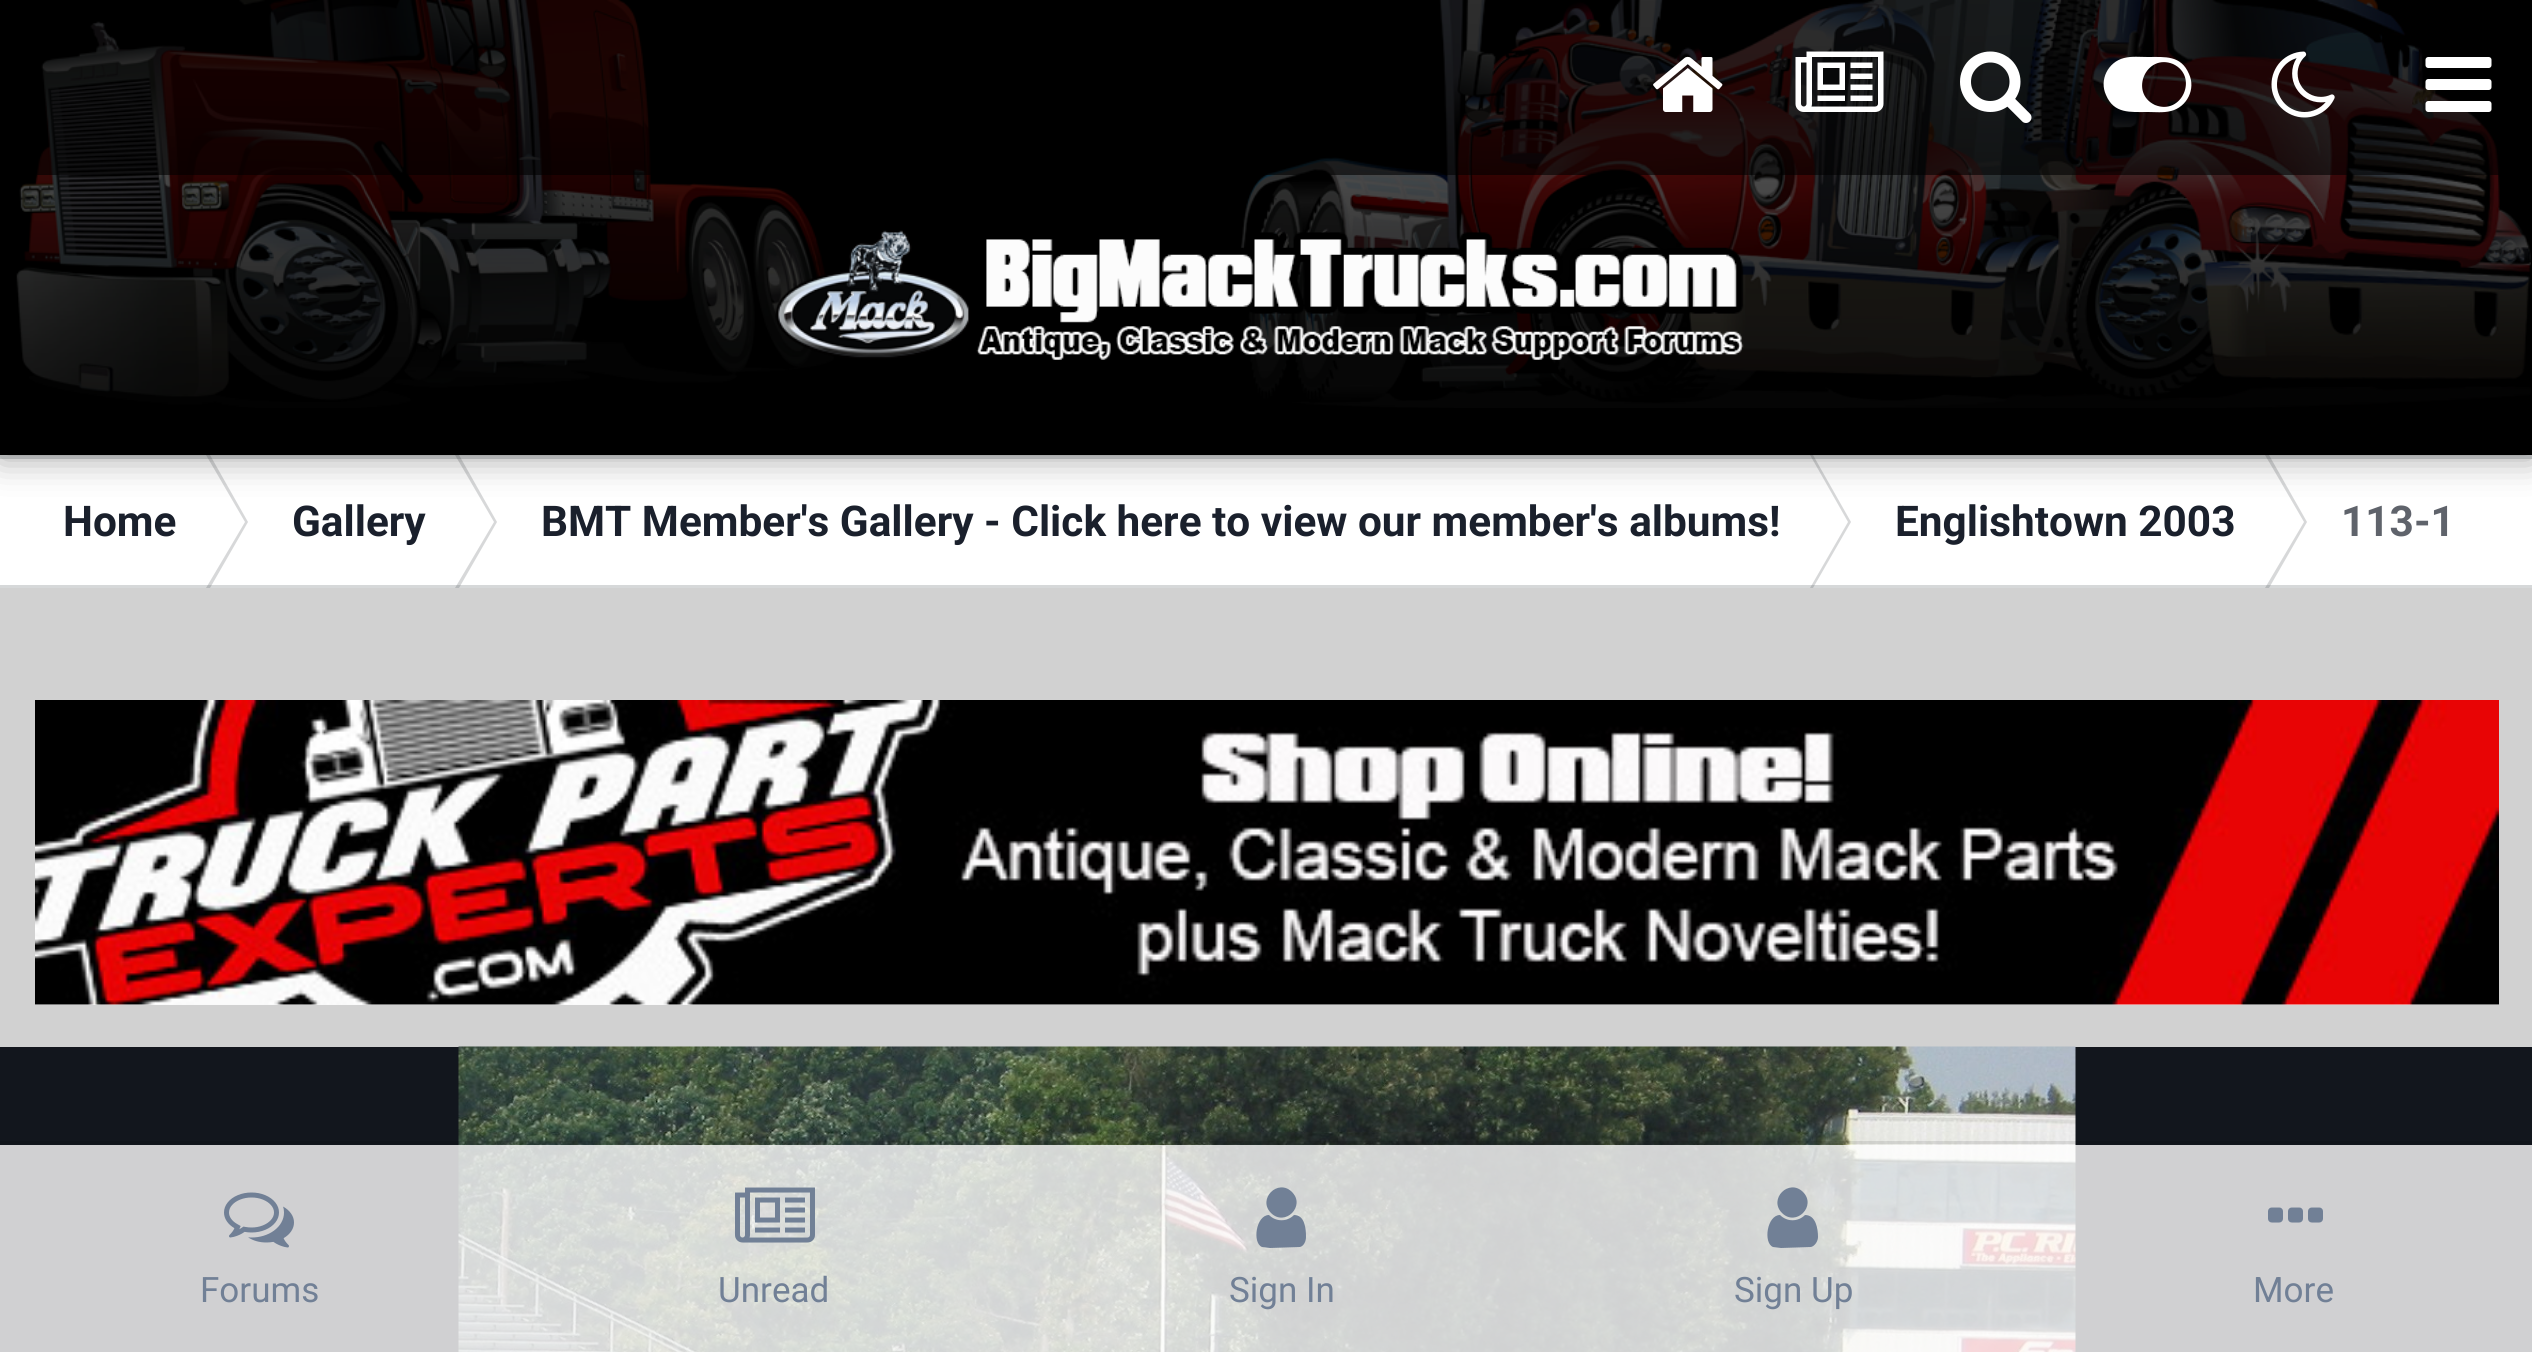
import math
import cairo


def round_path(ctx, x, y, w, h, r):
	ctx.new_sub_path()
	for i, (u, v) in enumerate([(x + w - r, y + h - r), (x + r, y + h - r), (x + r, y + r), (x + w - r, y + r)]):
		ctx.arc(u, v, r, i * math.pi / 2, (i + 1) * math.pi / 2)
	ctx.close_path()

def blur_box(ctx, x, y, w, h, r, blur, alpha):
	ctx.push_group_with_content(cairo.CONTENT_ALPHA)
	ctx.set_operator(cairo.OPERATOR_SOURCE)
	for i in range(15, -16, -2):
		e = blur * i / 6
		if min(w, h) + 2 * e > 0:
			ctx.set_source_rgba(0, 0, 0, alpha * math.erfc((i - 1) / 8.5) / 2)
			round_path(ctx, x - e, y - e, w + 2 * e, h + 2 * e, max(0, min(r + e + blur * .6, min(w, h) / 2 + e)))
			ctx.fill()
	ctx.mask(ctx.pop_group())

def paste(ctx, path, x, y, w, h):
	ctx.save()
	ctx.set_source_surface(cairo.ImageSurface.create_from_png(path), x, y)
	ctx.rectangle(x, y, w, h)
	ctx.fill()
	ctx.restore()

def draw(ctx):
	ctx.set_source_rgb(0.82, 0.82, 0.82)
	ctx.paint()
	ctx.set_source_rgb(1, 1, 1)
	ctx.rectangle(0, 455, 2532, 133)
	ctx.fill()
	ctx.set_source_rgb(0.843, 0.847, 0.851)
	ctx.new_path()
	ctx.move_to(206, 455)
	ctx.line_to(210, 455)
	ctx.line_to(248, 522)
	ctx.line_to(245, 522)
	ctx.close_path()
	ctx.fill()
	ctx.new_path()
	ctx.move_to(455, 455)
	ctx.line_to(459, 455)
	ctx.line_to(497, 522)
	ctx.line_to(494, 522)
	ctx.close_path()
	ctx.fill()
	ctx.new_path()
	ctx.move_to(1810, 455)
	ctx.line_to(1813, 455)
	ctx.line_to(1851, 522)
	ctx.line_to(1848, 522)
	ctx.close_path()
	ctx.fill()
	ctx.new_path()
	ctx.move_to(2265, 455)
	ctx.line_to(2269, 455)
	ctx.line_to(2307, 522)
	ctx.line_to(2304, 522)
	ctx.close_path()
	ctx.fill()
	ctx.set_source_rgba(0.208, 0.235, 0.255, 0.2)
	ctx.rectangle(0, 455, 2532, 4)
	ctx.fill()
	ctx.set_source_rgb(0, 0, 0)
	blur_box(ctx, 0, 4, 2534, 455, 0, 17.5, 0.35)
	ctx.set_source_rgb(0, 0, 0)
	ctx.rectangle(0, 0, 2532, 455)
	ctx.fill()
	paste(ctx, 'media/1.png', 16, 0, 2515, 408)
	ctx.set_source_rgba(0, 0, 0, 0.6)
	ctx.rectangle(37, 0, 2462, 175)
	ctx.fill()
	paste(ctx, 'media/2.png', 1653, 56, 70, 56)
	paste(ctx, 'media/3.png', 1795, 51, 89, 61)
	paste(ctx, 'media/4.png', 1960, 51, 72, 72)
	ctx.set_source_rgb(1, 1, 1)
	ctx.new_path()
	ctx.move_to(2106, 95)
	ctx.curve_to(2099, 80, 2108, 62, 2124, 58)
	ctx.curve_to(2132, 56, 2140, 57, 2148, 57)
	ctx.curve_to(2165, 57, 2181, 55, 2189, 74)
	ctx.curve_to(2196, 89, 2187, 107, 2171, 111)
	ctx.curve_to(2163, 113, 2155, 112, 2148, 112)
	ctx.curve_to(2130, 112, 2114, 114, 2106, 95)
	ctx.close_path()
	ctx.move_to(2155, 105)
	ctx.curve_to(2182, 116, 2199, 76, 2173, 64)
	ctx.curve_to(2146, 53, 2129, 93, 2155, 105)
	ctx.close_path()
	ctx.fill()
	paste(ctx, 'media/5.png', 2271, 51, 64, 67)
	paste(ctx, 'media/6.png', 2425, 57, 67, 55)
	paste(ctx, 'media/7.png', 775, 230, 969, 130)
	ctx.set_source_rgb(0.843, 0.847, 0.851)
	ctx.new_path()
	ctx.move_to(206, 588)
	ctx.line_to(210, 588)
	ctx.line_to(248, 522)
	ctx.line_to(245, 522)
	ctx.close_path()
	ctx.fill()
	ctx.new_path()
	ctx.move_to(455, 588)
	ctx.line_to(459, 588)
	ctx.line_to(497, 522)
	ctx.line_to(494, 522)
	ctx.close_path()
	ctx.fill()
	ctx.new_path()
	ctx.move_to(1810, 588)
	ctx.line_to(1813, 588)
	ctx.line_to(1851, 522)
	ctx.line_to(1848, 522)
	ctx.close_path()
	ctx.fill()
	ctx.new_path()
	ctx.move_to(2265, 588)
	ctx.line_to(2269, 588)
	ctx.line_to(2307, 522)
	ctx.line_to(2304, 522)
	ctx.close_path()
	ctx.fill()
	ctx.set_source_rgba(0.208, 0.235, 0.255, 0.2)
	ctx.rectangle(0, 585, 2532, 3)
	ctx.fill()
	ctx.select_font_face('Roboto', cairo.FONT_SLANT_NORMAL, cairo.FONT_WEIGHT_BOLD)
	ctx.set_font_size(42.35)
	ctx.set_source_rgb(0.102, 0.125, 0.173)
	for x, y, s in [
		(63, 536, 'Home'),
		(292, 536, 'Gallery'),
		(541, 536, 'BMT Member\'s Gallery - Click here to view our member\'s albums!'),
		(1895, 536, 'Englishtown 2003'),
	]:
		ctx.move_to(x, y)
		ctx.show_text(s)
	ctx.set_source_rgb(0.373, 0.388, 0.42)
	ctx.move_to(2341, 536)
	ctx.show_text('113-1')
	ctx.set_source_rgb(0.969, 0.969, 0.969)
	ctx.rectangle(35, 1004, 2464, 1)
	ctx.fill()
	paste(ctx, 'media/8.png', 35, 700, 2464, 305)
	ctx.set_source_rgb(0.071, 0.086, 0.114)
	ctx.rectangle(0, 1047, 2532, 305)
	ctx.fill()
	paste(ctx, 'media/9.png', 458, 1046, 1618, 306)
	ctx.set_source_rgba(0, 0, 0, 0.1)
	ctx.rectangle(0, 1141, 2532, 3)
	ctx.fill()
	ctx.set_source_rgba(1, 1, 1, 0.8)
	ctx.rectangle(0, 1145, 2532, 207)
	ctx.fill()
	paste(ctx, 'media/10.png', 224, 1192, 70, 56)
	ctx.select_font_face('Roboto')
	ctx.set_font_size(35)
	ctx.set_source_rgb(0.443, 0.502, 0.588)
	ctx.move_to(200, 1302)
	ctx.show_text('Forums')
	paste(ctx, 'media/11.png', 735, 1187, 80, 56)
	ctx.move_to(718, 1302)
	ctx.show_text('Unread')
	ctx.new_path()
	ctx.move_to(1306, 1237)
	ctx.curve_to(1306, 1241, 1304, 1246, 1300, 1247)
	ctx.line_to(1270, 1248)
	ctx.line_to(1262, 1247)
	ctx.curve_to(1252, 1243, 1256, 1215, 1269, 1215)
	ctx.curve_to(1276, 1222, 1287, 1222, 1294, 1215)
	ctx.curve_to(1305, 1215, 1306, 1229, 1306, 1237)
	ctx.close_path()
	ctx.move_to(1292, 1192)
	ctx.curve_to(1306, 1206, 1285, 1227, 1271, 1213)
	ctx.curve_to(1257, 1199, 1278, 1178, 1292, 1192)
	ctx.close_path()
	ctx.fill()
	ctx.move_to(1229, 1302)
	ctx.show_text('Sign In')
	ctx.new_path()
	ctx.move_to(1818, 1237)
	ctx.curve_to(1818, 1241, 1815, 1246, 1811, 1247)
	ctx.line_to(1781, 1248)
	ctx.line_to(1773, 1247)
	ctx.curve_to(1763, 1243, 1767, 1215, 1780, 1215)
	ctx.curve_to(1787, 1222, 1798, 1222, 1805, 1215)
	ctx.curve_to(1816, 1215, 1818, 1229, 1818, 1237)
	ctx.close_path()
	ctx.move_to(1803, 1192)
	ctx.curve_to(1817, 1206, 1796, 1227, 1782, 1213)
	ctx.curve_to(1768, 1199, 1789, 1178, 1803, 1192)
	ctx.close_path()
	ctx.fill()
	ctx.move_to(1734, 1302)
	ctx.show_text('Sign Up')
	paste(ctx, 'media/12.png', 2268, 1207, 55, 16)
	ctx.move_to(2253, 1302)
	ctx.show_text('More')


surface = cairo.ImageSurface(cairo.FORMAT_RGB24, 2532, 1352)
ctx = cairo.Context(surface)
options = cairo.FontOptions()
options.set_hint_metrics(cairo.HINT_METRICS_OFF)
options.set_hint_style(cairo.HINT_STYLE_NONE)
ctx.set_font_options(options)
ctx.set_miter_limit(4)
draw(ctx)
surface.write_to_png('image.png')
